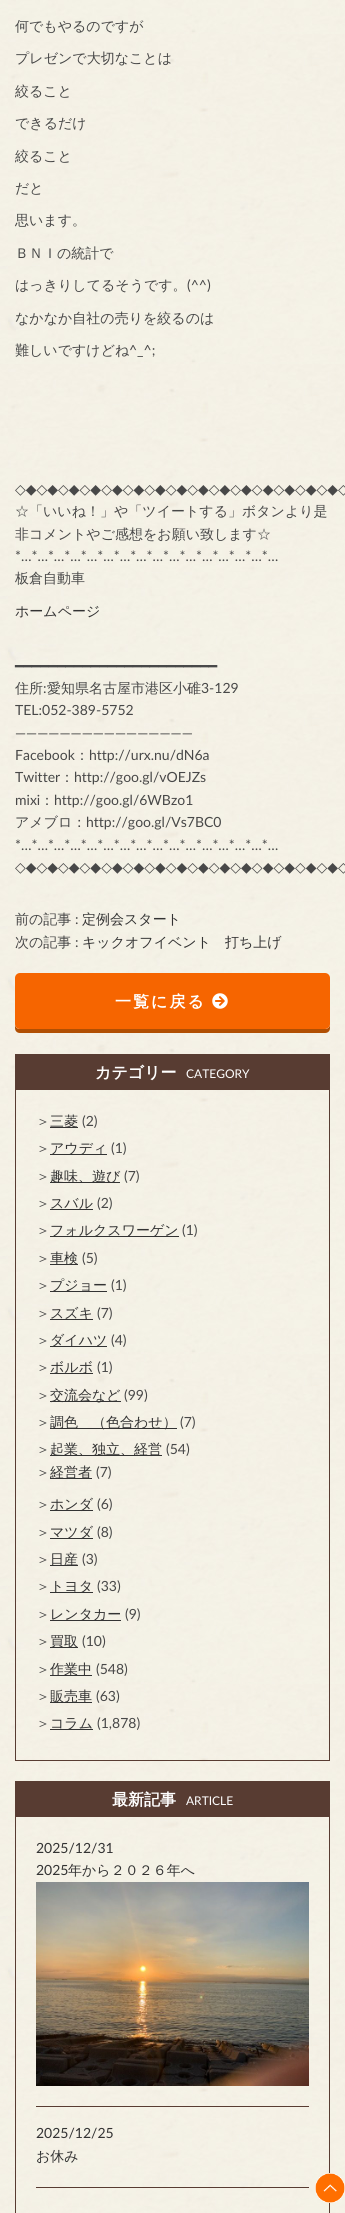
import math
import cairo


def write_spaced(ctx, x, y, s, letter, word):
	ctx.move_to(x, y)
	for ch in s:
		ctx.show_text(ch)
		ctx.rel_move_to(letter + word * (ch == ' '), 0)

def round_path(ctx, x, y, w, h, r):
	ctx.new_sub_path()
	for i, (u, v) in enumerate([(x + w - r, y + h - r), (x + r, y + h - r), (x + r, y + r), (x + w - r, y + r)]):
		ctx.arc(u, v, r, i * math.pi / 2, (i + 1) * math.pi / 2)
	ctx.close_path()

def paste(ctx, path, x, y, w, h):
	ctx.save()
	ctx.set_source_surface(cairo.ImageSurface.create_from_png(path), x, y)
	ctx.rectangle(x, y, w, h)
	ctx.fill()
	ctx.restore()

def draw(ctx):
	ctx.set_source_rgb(1, 1, 1)
	ctx.paint()
	paste(ctx, 'media/1.png', 0, 0, 345, 2213)
	ctx.select_font_face('WenQuanYi Zen Hei Medium')
	ctx.set_font_size(14)
	ctx.set_source_rgb(0.282, 0.282, 0.282)
	for x, y, s in [
		(15, 31, '何でもやるのですが'),
		(15, 63, 'プレゼンで大切なことは'),
		(15, 96, '絞ること'),
		(15, 128, 'できるだけ'),
		(15, 161, '絞ること'),
		(15, 193, 'だと'),
		(15, 225, '思います。'),
		(15, 258, 'ＢＮＩの統計で'),
		(15, 290, 'はっきりしてるそうです。'),
	]:
		ctx.move_to(x, y)
		ctx.show_text(s)
	ctx.select_font_face('Lato')
	ctx.move_to(187, 290)
	ctx.show_text('(^^)')
	ctx.select_font_face('WenQuanYi Zen Hei Medium')
	ctx.move_to(15, 323)
	ctx.show_text('なかなか自社の売りを絞るのは')
	ctx.move_to(15, 355)
	ctx.show_text('難しいですけどね')
	ctx.select_font_face('Lato')
	ctx.move_to(129, 355)
	ctx.show_text('^_^;')
	ctx.select_font_face('DejaVu Sans')
	ctx.move_to(15, 494)
	ctx.show_text('◇◆◇◆◇◆◇◆◇◆◇◆◇◆◇◆◇◆◇◆◇◆◇◆◇◆◇◆◇◆◇')
	ctx.select_font_face('WenQuanYi Zen Hei Medium')
	ctx.move_to(15, 516)
	ctx.show_text('☆「いいね！」や「ツイートする」ボタンより是')
	ctx.move_to(15, 539)
	ctx.show_text('非コメントやご感想をお願い致します☆')
	ctx.select_font_face('Lato')
	ctx.move_to(15, 561)
	ctx.show_text('*…*…*…*…*…*…*…*…*…*…*…*…*…*…*…*…')
	ctx.select_font_face('WenQuanYi Zen Hei Medium')
	ctx.move_to(15, 583)
	ctx.show_text('板倉自動車')
	ctx.set_source_rgb(0.2, 0.2, 0.2)
	ctx.move_to(15, 616)
	ctx.show_text('ホームページ')
	ctx.select_font_face('DejaVu Sans')
	ctx.set_source_rgb(0.282, 0.282, 0.282)
	ctx.move_to(15, 671)
	ctx.show_text('━━━━━━━━━━━━━━━━━━━━━━━━')
	ctx.select_font_face('WenQuanYi Zen Hei Medium')
	ctx.move_to(15, 693)
	ctx.show_text('住所')
	ctx.select_font_face('Lato')
	ctx.move_to(43, 693)
	ctx.show_text(':')
	ctx.select_font_face('WenQuanYi Zen Hei Medium')
	ctx.move_to(47, 693)
	ctx.show_text('愛知県名古屋市港区小碓')
	ctx.select_font_face('Lato')
	for x, y, s in [
		(201, 693, '3-129'),
		(15, 715, 'TEL:052-389-5752'),
		(15, 738, '————————————————'),
		(15, 760, 'Facebook'),
	]:
		ctx.move_to(x, y)
		ctx.show_text(s)
	ctx.select_font_face('WenQuanYi Zen Hei Medium')
	ctx.move_to(75, 760)
	ctx.show_text('：')
	ctx.select_font_face('Lato')
	ctx.move_to(89, 760)
	ctx.show_text('http://urx.nu/dN6a')
	ctx.move_to(15, 782)
	ctx.show_text('Twitter')
	ctx.select_font_face('WenQuanYi Zen Hei Medium')
	ctx.move_to(60, 782)
	ctx.show_text('：')
	ctx.select_font_face('Lato')
	ctx.move_to(74, 782)
	ctx.show_text('http://goo.gl/vOEJZs')
	ctx.move_to(15, 805)
	ctx.show_text('mixi')
	ctx.select_font_face('WenQuanYi Zen Hei Medium')
	ctx.move_to(40, 805)
	ctx.show_text('：')
	ctx.select_font_face('Lato')
	ctx.move_to(54, 805)
	ctx.show_text('http://goo.gl/6WBzo1')
	ctx.select_font_face('WenQuanYi Zen Hei Medium')
	ctx.move_to(15, 827)
	ctx.show_text('アメブロ：')
	ctx.select_font_face('Lato')
	ctx.move_to(86, 827)
	ctx.show_text('http://goo.gl/Vs7BC0')
	ctx.move_to(15, 850)
	ctx.show_text('*…*…*…*…*…*…*…*…*…*…*…*…*…*…*…*…')
	ctx.select_font_face('DejaVu Sans')
	ctx.move_to(15, 872)
	ctx.show_text('◇◆◇◆◇◆◇◆◇◆◇◆◇◆◇◆◇◆◇◆◇◆◇◆◇◆◇◆◇◆◇')
	ctx.select_font_face('WenQuanYi Zen Hei Medium')
	ctx.move_to(15, 924)
	ctx.show_text('前の記事')
	ctx.select_font_face('Lato')
	ctx.move_to(75, 924)
	ctx.show_text(':')
	ctx.select_font_face('WenQuanYi Zen Hei Medium')
	ctx.set_source_rgb(0.2, 0.2, 0.2)
	ctx.move_to(82, 924)
	ctx.show_text('定例会スタート')
	ctx.set_source_rgb(0.282, 0.282, 0.282)
	ctx.move_to(15, 947)
	ctx.show_text('次の記事')
	ctx.select_font_face('Lato')
	ctx.move_to(75, 947)
	ctx.show_text(':')
	ctx.select_font_face('WenQuanYi Zen Hei Medium')
	ctx.set_source_rgb(0.2, 0.2, 0.2)
	ctx.move_to(82, 947)
	ctx.show_text('キックオフイベント　打ち上げ')
	ctx.set_source_rgb(0.694, 0.31, 0.012)
	ctx.new_path()
	ctx.move_to(15, 1024)
	ctx.line_to(15, 1028)
	ctx.curve_to(15, 1031, 17, 1033, 20, 1033)
	ctx.line_to(325, 1033)
	ctx.curve_to(328, 1033, 330, 1031, 330, 1028)
	ctx.line_to(330, 1024)
	ctx.curve_to(330, 1027, 328, 1029, 325, 1029)
	ctx.line_to(20, 1029)
	ctx.curve_to(17, 1029, 15, 1027, 15, 1024)
	ctx.close_path()
	ctx.fill()
	ctx.set_source_rgb(0.961, 0.396, 0)
	round_path(ctx, 15, 973, 315, 56, 5)
	ctx.fill()
	ctx.select_font_face('WenQuanYi Zen Hei', cairo.FONT_SLANT_NORMAL, cairo.FONT_WEIGHT_BOLD)
	ctx.set_font_size(16)
	ctx.set_source_rgb(1, 1, 1)
	write_spaced(ctx, 115, 1007, '一覧に戻る', 2, 0)
	paste(ctx, 'media/2.png', 212, 993, 16, 16)
	ctx.set_source_rgb(0.345, 0.235, 0.196)
	ctx.rectangle(15, 1054, 315, 36)
	ctx.fill()
	ctx.set_source_rgb(1, 1, 1)
	ctx.move_to(95, 1078)
	ctx.show_text('カテゴリー')
	ctx.select_font_face('Lato')
	ctx.set_font_size(12)
	ctx.move_to(186, 1078)
	ctx.show_text('CATEGORY')
	ctx.set_source_rgb(0.345, 0.235, 0.196)
	ctx.rectangle(329, 1090, 1, 671)
	ctx.rectangle(15, 1760, 315, 1)
	ctx.rectangle(15, 1090, 1, 671)
	ctx.fill()
	ctx.select_font_face('WenQuanYi Zen Hei Medium')
	ctx.set_font_size(14)
	ctx.set_source_rgb(0.282, 0.282, 0.282)
	ctx.move_to(36, 1126)
	ctx.show_text('＞')
	ctx.set_source_rgb(0.2, 0.2, 0.2)
	ctx.rectangle(50, 1127, 28, 1)
	ctx.fill()
	ctx.move_to(50, 1126)
	ctx.show_text('三菱')
	ctx.select_font_face('Lato')
	ctx.set_source_rgb(0.282, 0.282, 0.282)
	ctx.move_to(82, 1126)
	ctx.show_text('(2)')
	ctx.select_font_face('WenQuanYi Zen Hei Medium')
	ctx.move_to(36, 1153)
	ctx.show_text('＞')
	ctx.set_source_rgb(0.2, 0.2, 0.2)
	ctx.rectangle(50, 1154, 57, 1)
	ctx.fill()
	ctx.move_to(50, 1153)
	ctx.show_text('アウディ')
	ctx.select_font_face('Lato')
	ctx.set_source_rgb(0.282, 0.282, 0.282)
	ctx.move_to(111, 1153)
	ctx.show_text('(1)')
	ctx.select_font_face('WenQuanYi Zen Hei Medium')
	ctx.move_to(36, 1181)
	ctx.show_text('＞')
	ctx.set_source_rgb(0.2, 0.2, 0.2)
	ctx.rectangle(50, 1182, 70, 1)
	ctx.fill()
	ctx.move_to(50, 1181)
	ctx.show_text('趣味、遊び')
	ctx.select_font_face('Lato')
	ctx.set_source_rgb(0.282, 0.282, 0.282)
	ctx.move_to(124, 1181)
	ctx.show_text('(7)')
	ctx.select_font_face('WenQuanYi Zen Hei Medium')
	ctx.move_to(36, 1208)
	ctx.show_text('＞')
	ctx.set_source_rgb(0.2, 0.2, 0.2)
	ctx.move_to(50, 1208)
	ctx.show_text('スバル')
	ctx.rectangle(50, 1209, 43, 1)
	ctx.fill()
	ctx.select_font_face('Lato')
	ctx.set_source_rgb(0.282, 0.282, 0.282)
	ctx.move_to(97, 1208)
	ctx.show_text('(2)')
	ctx.select_font_face('WenQuanYi Zen Hei Medium')
	ctx.move_to(36, 1235)
	ctx.show_text('＞')
	ctx.set_source_rgb(0.2, 0.2, 0.2)
	ctx.rectangle(50, 1236, 129, 1)
	ctx.fill()
	ctx.move_to(50, 1235)
	ctx.show_text('フォルクスワーゲン')
	ctx.select_font_face('Lato')
	ctx.set_source_rgb(0.282, 0.282, 0.282)
	ctx.move_to(182, 1235)
	ctx.show_text('(1)')
	ctx.select_font_face('WenQuanYi Zen Hei Medium')
	ctx.move_to(36, 1263)
	ctx.show_text('＞')
	ctx.set_source_rgb(0.2, 0.2, 0.2)
	ctx.rectangle(50, 1264, 28, 1)
	ctx.fill()
	ctx.move_to(50, 1263)
	ctx.show_text('車検')
	ctx.select_font_face('Lato')
	ctx.set_source_rgb(0.282, 0.282, 0.282)
	ctx.move_to(82, 1263)
	ctx.show_text('(5)')
	ctx.select_font_face('WenQuanYi Zen Hei Medium')
	ctx.move_to(36, 1290)
	ctx.show_text('＞')
	ctx.set_source_rgb(0.2, 0.2, 0.2)
	ctx.rectangle(50, 1291, 57, 1)
	ctx.fill()
	ctx.move_to(50, 1290)
	ctx.show_text('プジョー')
	ctx.select_font_face('Lato')
	ctx.set_source_rgb(0.282, 0.282, 0.282)
	ctx.move_to(111, 1290)
	ctx.show_text('(1)')
	ctx.select_font_face('WenQuanYi Zen Hei Medium')
	ctx.move_to(36, 1318)
	ctx.show_text('＞')
	ctx.set_source_rgb(0.2, 0.2, 0.2)
	ctx.rectangle(50, 1319, 43, 1)
	ctx.fill()
	ctx.move_to(50, 1318)
	ctx.show_text('スズキ')
	ctx.select_font_face('Lato')
	ctx.set_source_rgb(0.282, 0.282, 0.282)
	ctx.move_to(97, 1318)
	ctx.show_text('(7)')
	ctx.select_font_face('WenQuanYi Zen Hei Medium')
	ctx.move_to(36, 1345)
	ctx.show_text('＞')
	ctx.set_source_rgb(0.2, 0.2, 0.2)
	ctx.rectangle(50, 1346, 57, 1)
	ctx.fill()
	ctx.move_to(50, 1345)
	ctx.show_text('ダイハツ')
	ctx.select_font_face('Lato')
	ctx.set_source_rgb(0.282, 0.282, 0.282)
	ctx.move_to(111, 1345)
	ctx.show_text('(4)')
	ctx.select_font_face('WenQuanYi Zen Hei Medium')
	ctx.move_to(36, 1372)
	ctx.show_text('＞')
	ctx.set_source_rgb(0.2, 0.2, 0.2)
	ctx.rectangle(50, 1373, 43, 1)
	ctx.fill()
	ctx.move_to(50, 1372)
	ctx.show_text('ボルボ')
	ctx.select_font_face('Lato')
	ctx.set_source_rgb(0.282, 0.282, 0.282)
	ctx.move_to(97, 1372)
	ctx.show_text('(1)')
	ctx.select_font_face('WenQuanYi Zen Hei Medium')
	ctx.move_to(36, 1400)
	ctx.show_text('＞')
	ctx.set_source_rgb(0.2, 0.2, 0.2)
	ctx.rectangle(50, 1401, 71, 1)
	ctx.fill()
	ctx.move_to(50, 1400)
	ctx.show_text('交流会など')
	ctx.select_font_face('Lato')
	ctx.set_source_rgb(0.282, 0.282, 0.282)
	ctx.move_to(124, 1400)
	ctx.show_text('(99)')
	ctx.select_font_face('WenQuanYi Zen Hei Medium')
	ctx.move_to(36, 1427)
	ctx.show_text('＞')
	ctx.set_source_rgb(0.2, 0.2, 0.2)
	ctx.rectangle(50, 1428, 127, 1)
	ctx.fill()
	ctx.move_to(50, 1427)
	ctx.show_text('調色　（色合わせ）')
	ctx.select_font_face('Lato')
	ctx.set_source_rgb(0.282, 0.282, 0.282)
	ctx.move_to(180, 1427)
	ctx.show_text('(7)')
	ctx.select_font_face('WenQuanYi Zen Hei Medium')
	ctx.move_to(36, 1454)
	ctx.show_text('＞')
	ctx.set_source_rgb(0.2, 0.2, 0.2)
	ctx.rectangle(50, 1455, 112, 1)
	ctx.fill()
	ctx.move_to(50, 1454)
	ctx.show_text('起業、独立、経営')
	ctx.select_font_face('Lato')
	ctx.set_source_rgb(0.282, 0.282, 0.282)
	ctx.move_to(166, 1454)
	ctx.show_text('(54)')
	ctx.select_font_face('WenQuanYi Zen Hei Medium')
	ctx.move_to(36, 1477)
	ctx.show_text('＞')
	ctx.set_source_rgb(0.2, 0.2, 0.2)
	ctx.rectangle(50, 1478, 42, 1)
	ctx.fill()
	ctx.move_to(50, 1477)
	ctx.show_text('経営者')
	ctx.select_font_face('Lato')
	ctx.set_source_rgb(0.282, 0.282, 0.282)
	ctx.move_to(96, 1477)
	ctx.show_text('(7)')
	ctx.select_font_face('WenQuanYi Zen Hei Medium')
	ctx.move_to(36, 1509)
	ctx.show_text('＞')
	ctx.set_source_rgb(0.2, 0.2, 0.2)
	ctx.rectangle(50, 1510, 43, 1)
	ctx.fill()
	ctx.move_to(50, 1509)
	ctx.show_text('ホンダ')
	ctx.select_font_face('Lato')
	ctx.set_source_rgb(0.282, 0.282, 0.282)
	ctx.move_to(97, 1509)
	ctx.show_text('(6)')
	ctx.select_font_face('WenQuanYi Zen Hei Medium')
	ctx.move_to(36, 1537)
	ctx.show_text('＞')
	ctx.set_source_rgb(0.2, 0.2, 0.2)
	ctx.rectangle(50, 1538, 43, 1)
	ctx.fill()
	ctx.move_to(50, 1537)
	ctx.show_text('マツダ')
	ctx.select_font_face('Lato')
	ctx.set_source_rgb(0.282, 0.282, 0.282)
	ctx.move_to(97, 1537)
	ctx.show_text('(8)')
	ctx.select_font_face('WenQuanYi Zen Hei Medium')
	ctx.move_to(36, 1564)
	ctx.show_text('＞')
	ctx.set_source_rgb(0.2, 0.2, 0.2)
	ctx.rectangle(50, 1565, 28, 1)
	ctx.fill()
	ctx.move_to(50, 1564)
	ctx.show_text('日産')
	ctx.select_font_face('Lato')
	ctx.set_source_rgb(0.282, 0.282, 0.282)
	ctx.move_to(82, 1564)
	ctx.show_text('(3)')
	ctx.select_font_face('WenQuanYi Zen Hei Medium')
	ctx.move_to(36, 1591)
	ctx.show_text('＞')
	ctx.set_source_rgb(0.2, 0.2, 0.2)
	ctx.rectangle(50, 1592, 43, 1)
	ctx.fill()
	ctx.move_to(50, 1591)
	ctx.show_text('トヨタ')
	ctx.select_font_face('Lato')
	ctx.set_source_rgb(0.282, 0.282, 0.282)
	ctx.move_to(97, 1591)
	ctx.show_text('(33)')
	ctx.select_font_face('WenQuanYi Zen Hei Medium')
	ctx.move_to(36, 1619)
	ctx.show_text('＞')
	ctx.set_source_rgb(0.2, 0.2, 0.2)
	ctx.rectangle(50, 1620, 71, 1)
	ctx.fill()
	ctx.move_to(50, 1619)
	ctx.show_text('レンタカー')
	ctx.select_font_face('Lato')
	ctx.set_source_rgb(0.282, 0.282, 0.282)
	ctx.move_to(125, 1619)
	ctx.show_text('(9)')
	ctx.select_font_face('WenQuanYi Zen Hei Medium')
	ctx.move_to(36, 1646)
	ctx.show_text('＞')
	ctx.set_source_rgb(0.2, 0.2, 0.2)
	ctx.rectangle(50, 1647, 28, 1)
	ctx.fill()
	ctx.move_to(50, 1646)
	ctx.show_text('買取')
	ctx.select_font_face('Lato')
	ctx.set_source_rgb(0.282, 0.282, 0.282)
	ctx.move_to(82, 1646)
	ctx.show_text('(10)')
	ctx.select_font_face('WenQuanYi Zen Hei Medium')
	ctx.move_to(36, 1674)
	ctx.show_text('＞')
	ctx.set_source_rgb(0.2, 0.2, 0.2)
	ctx.rectangle(50, 1675, 42, 1)
	ctx.fill()
	ctx.move_to(50, 1674)
	ctx.show_text('作業中')
	ctx.select_font_face('Lato')
	ctx.set_source_rgb(0.282, 0.282, 0.282)
	ctx.move_to(96, 1674)
	ctx.show_text('(548)')
	ctx.select_font_face('WenQuanYi Zen Hei Medium')
	ctx.move_to(36, 1701)
	ctx.show_text('＞')
	ctx.set_source_rgb(0.2, 0.2, 0.2)
	ctx.rectangle(50, 1702, 42, 1)
	ctx.fill()
	ctx.move_to(50, 1701)
	ctx.show_text('販売車')
	ctx.select_font_face('Lato')
	ctx.set_source_rgb(0.282, 0.282, 0.282)
	ctx.move_to(96, 1701)
	ctx.show_text('(63)')
	ctx.select_font_face('WenQuanYi Zen Hei Medium')
	ctx.move_to(36, 1728)
	ctx.show_text('＞')
	ctx.set_source_rgb(0.2, 0.2, 0.2)
	ctx.rectangle(50, 1729, 43, 1)
	ctx.fill()
	ctx.move_to(50, 1728)
	ctx.show_text('コラム')
	ctx.select_font_face('Lato')
	ctx.set_source_rgb(0.282, 0.282, 0.282)
	ctx.move_to(97, 1728)
	ctx.show_text('(1,878)')
	ctx.set_source_rgb(0.345, 0.235, 0.196)
	ctx.rectangle(15, 1781, 315, 36)
	ctx.fill()
	ctx.select_font_face('WenQuanYi Zen Hei', cairo.FONT_SLANT_NORMAL, cairo.FONT_WEIGHT_BOLD)
	ctx.set_font_size(16)
	ctx.set_source_rgb(1, 1, 1)
	ctx.move_to(112, 1805)
	ctx.show_text('最新記事')
	ctx.select_font_face('Lato')
	ctx.set_font_size(12)
	ctx.move_to(186, 1805)
	ctx.show_text('ARTICLE')
	ctx.set_source_rgb(0.345, 0.235, 0.196)
	ctx.rectangle(329, 1817, 1, 396)
	ctx.rectangle(15, 1817, 1, 396)
	ctx.rectangle(36, 2106, 273, 1)
	ctx.fill()
	ctx.set_font_size(14)
	ctx.set_source_rgb(0.2, 0.2, 0.2)
	ctx.move_to(36, 1853)
	ctx.show_text('2025/12/31')
	ctx.move_to(36, 1875)
	ctx.show_text('2025')
	ctx.select_font_face('WenQuanYi Zen Hei Medium')
	ctx.move_to(68, 1875)
	ctx.show_text('年から２０２６年へ')
	paste(ctx, 'media/3.png', 36, 1882, 273, 204)
	ctx.set_source_rgb(0.345, 0.235, 0.196)
	ctx.rectangle(36, 2187, 273, 1)
	ctx.fill()
	ctx.select_font_face('Lato')
	ctx.set_source_rgb(0.2, 0.2, 0.2)
	ctx.move_to(36, 2138)
	ctx.show_text('2025/12/25')
	ctx.select_font_face('WenQuanYi Zen Hei Medium')
	ctx.move_to(36, 2161)
	ctx.show_text('お休み')
	paste(ctx, 'media/4.png', 315, 2173, 30, 30)


surface = cairo.ImageSurface(cairo.FORMAT_RGB24, 345, 2213)
ctx = cairo.Context(surface)
options = cairo.FontOptions()
options.set_hint_metrics(cairo.HINT_METRICS_OFF)
options.set_hint_style(cairo.HINT_STYLE_NONE)
ctx.set_font_options(options)
ctx.set_miter_limit(4)
draw(ctx)
surface.write_to_png('image.png')
